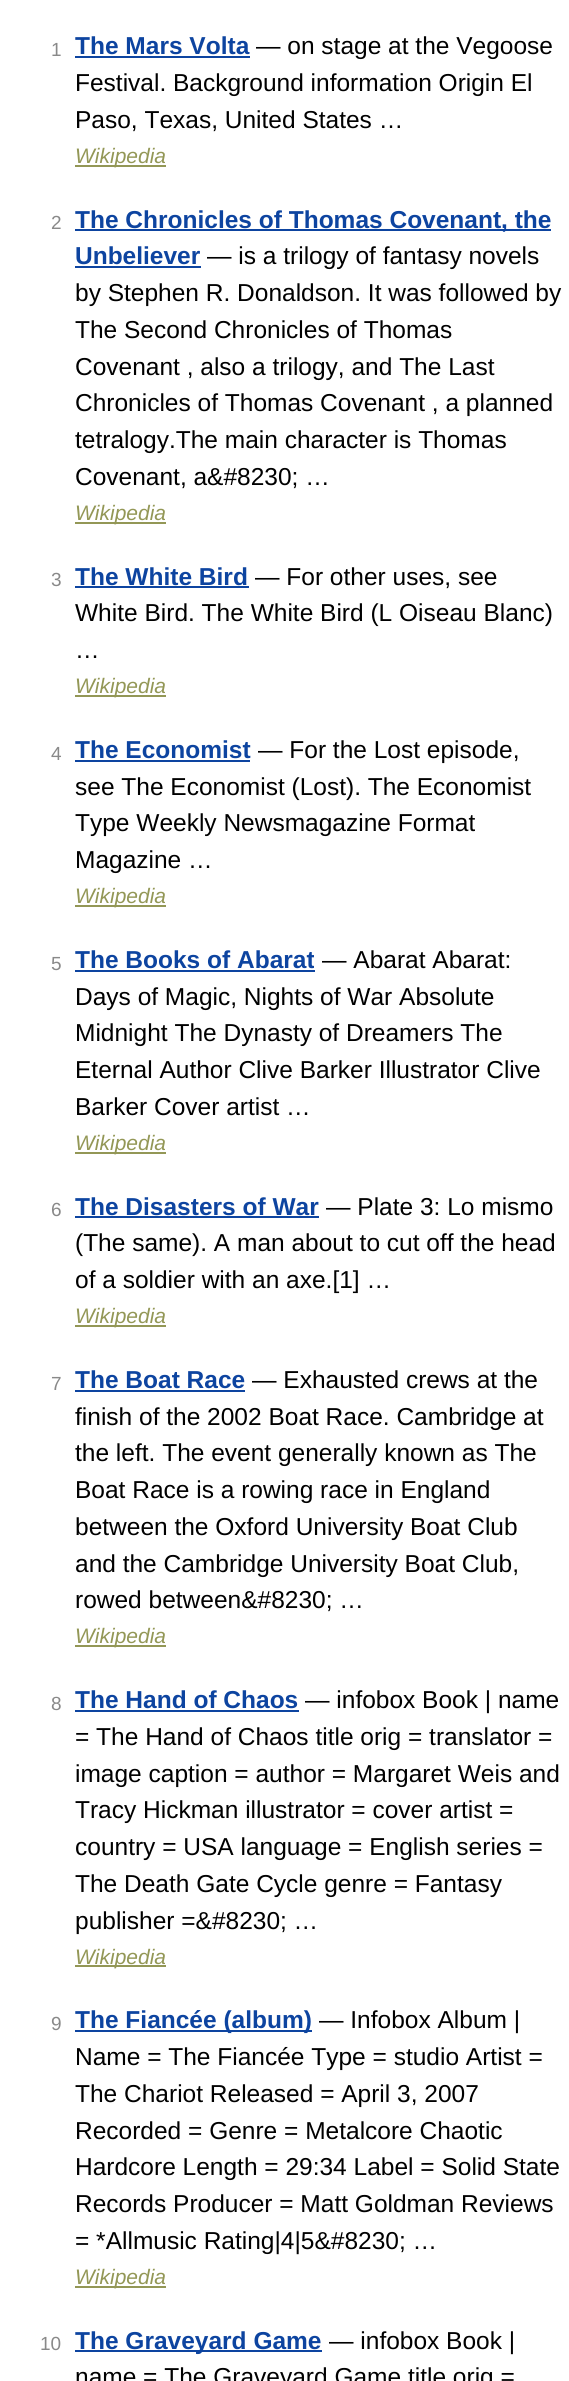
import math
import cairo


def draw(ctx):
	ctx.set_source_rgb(1, 1, 1)
	ctx.paint()
	ctx.select_font_face('Liberation Sans')
	ctx.set_font_size(19)
	ctx.set_source_rgb(0.537, 0.537, 0.537)
	ctx.move_to(51, 56)
	ctx.show_text('1')
	ctx.select_font_face('Liberation Sans', cairo.FONT_SLANT_NORMAL, cairo.FONT_WEIGHT_BOLD)
	ctx.set_font_size(24.5)
	ctx.set_source_rgb(0.051, 0.267, 0.627)
	ctx.move_to(75, 54)
	ctx.show_text('The Mars Volta')
	ctx.rectangle(75, 56, 175, 2)
	ctx.fill()
	ctx.select_font_face('Liberation Sans')
	ctx.set_source_rgb(0, 0, 0)
	for x, y, s in [
		(256, 54, '— on stage at the Vegoose'),
		(75, 91, 'Festival. Background information Origin El'),
		(75, 128, 'Paso, Texas, United States …'),
	]:
		ctx.move_to(x, y)
		ctx.show_text(s)
	ctx.set_source_rgb(0.576, 0.592, 0.337)
	ctx.rectangle(75, 165, 91, 2)
	ctx.fill()
	ctx.select_font_face('Liberation Sans', cairo.FONT_SLANT_ITALIC)
	ctx.set_font_size(21)
	ctx.move_to(75, 163)
	ctx.show_text('Wikipedia')
	ctx.select_font_face('Liberation Sans')
	ctx.set_font_size(19)
	ctx.set_source_rgb(0.537, 0.537, 0.537)
	ctx.move_to(51, 229)
	ctx.show_text('2')
	ctx.set_source_rgb(0.051, 0.267, 0.627)
	ctx.rectangle(75, 229, 476, 2)
	ctx.fill()
	ctx.select_font_face('Liberation Sans', cairo.FONT_SLANT_NORMAL, cairo.FONT_WEIGHT_BOLD)
	ctx.set_font_size(24.5)
	ctx.move_to(75, 228)
	ctx.show_text('The Chronicles of Thomas Covenant, the')
	ctx.move_to(75, 264)
	ctx.show_text('Unbeliever')
	ctx.rectangle(75, 266, 126, 2)
	ctx.fill()
	ctx.select_font_face('Liberation Sans')
	ctx.set_source_rgb(0, 0, 0)
	for x, y, s in [
		(207, 264, '— is a trilogy of fantasy novels'),
		(75, 301, 'by Stephen R. Donaldson. It was followed by'),
		(75, 338, 'The Second Chronicles of Thomas'),
		(75, 375, 'Covenant , also a trilogy, and The Last'),
		(75, 411, 'Chronicles of Thomas Covenant , a planned'),
		(75, 448, 'tetralogy.The main character is Thomas'),
		(75, 485, 'Covenant, a&#8230; …'),
	]:
		ctx.move_to(x, y)
		ctx.show_text(s)
	ctx.set_source_rgb(0.576, 0.592, 0.337)
	ctx.rectangle(75, 522, 91, 2)
	ctx.fill()
	ctx.select_font_face('Liberation Sans', cairo.FONT_SLANT_ITALIC)
	ctx.set_font_size(21)
	ctx.move_to(75, 520)
	ctx.show_text('Wikipedia')
	ctx.select_font_face('Liberation Sans')
	ctx.set_font_size(19)
	ctx.set_source_rgb(0.537, 0.537, 0.537)
	ctx.move_to(51, 586)
	ctx.show_text('3')
	ctx.select_font_face('Liberation Sans', cairo.FONT_SLANT_NORMAL, cairo.FONT_WEIGHT_BOLD)
	ctx.set_font_size(24.5)
	ctx.set_source_rgb(0.051, 0.267, 0.627)
	ctx.move_to(75, 585)
	ctx.show_text('The White Bird')
	ctx.rectangle(75, 586, 174, 2)
	ctx.fill()
	ctx.select_font_face('Liberation Sans')
	ctx.set_source_rgb(0, 0, 0)
	for x, y, s in [
		(255, 585, '— For other uses, see'),
		(75, 621, 'White Bird. The White Bird (L Oiseau Blanc)'),
		(75, 658, '…'),
	]:
		ctx.move_to(x, y)
		ctx.show_text(s)
	ctx.set_source_rgb(0.576, 0.592, 0.337)
	ctx.rectangle(75, 695, 91, 2)
	ctx.fill()
	ctx.select_font_face('Liberation Sans', cairo.FONT_SLANT_ITALIC)
	ctx.set_font_size(21)
	ctx.move_to(75, 693)
	ctx.show_text('Wikipedia')
	ctx.select_font_face('Liberation Sans')
	ctx.set_font_size(19)
	ctx.set_source_rgb(0.537, 0.537, 0.537)
	ctx.move_to(51, 760)
	ctx.show_text('4')
	ctx.select_font_face('Liberation Sans', cairo.FONT_SLANT_NORMAL, cairo.FONT_WEIGHT_BOLD)
	ctx.set_font_size(24.5)
	ctx.set_source_rgb(0.051, 0.267, 0.627)
	ctx.move_to(75, 758)
	ctx.show_text('The Economist')
	ctx.rectangle(75, 760, 175, 2)
	ctx.fill()
	ctx.select_font_face('Liberation Sans')
	ctx.set_source_rgb(0, 0, 0)
	for x, y, s in [
		(258, 758, '— For the Lost episode,'),
		(75, 795, 'see The Economist (Lost). The Economist'),
		(75, 831, 'Type Weekly Newsmagazine Format'),
		(75, 868, 'Magazine …'),
	]:
		ctx.move_to(x, y)
		ctx.show_text(s)
	ctx.set_source_rgb(0.576, 0.592, 0.337)
	ctx.rectangle(75, 905, 91, 2)
	ctx.fill()
	ctx.select_font_face('Liberation Sans', cairo.FONT_SLANT_ITALIC)
	ctx.set_font_size(21)
	ctx.move_to(75, 903)
	ctx.show_text('Wikipedia')
	ctx.select_font_face('Liberation Sans')
	ctx.set_font_size(19)
	ctx.set_source_rgb(0.537, 0.537, 0.537)
	ctx.move_to(51, 970)
	ctx.show_text('5')
	ctx.select_font_face('Liberation Sans', cairo.FONT_SLANT_NORMAL, cairo.FONT_WEIGHT_BOLD)
	ctx.set_font_size(24.5)
	ctx.set_source_rgb(0.051, 0.267, 0.627)
	ctx.move_to(75, 968)
	ctx.show_text('The Books of Abarat')
	ctx.rectangle(75, 970, 240, 2)
	ctx.fill()
	ctx.select_font_face('Liberation Sans')
	ctx.set_source_rgb(0, 0, 0)
	for x, y, s in [
		(322, 968, '— Abarat Abarat:'),
		(75, 1005, 'Days of Magic, Nights of War Absolute'),
		(75, 1041, 'Midnight The Dynasty of Dreamers The'),
		(75, 1078, 'Eternal Author Clive Barker Illustrator Clive'),
		(75, 1115, 'Barker Cover artist …'),
	]:
		ctx.move_to(x, y)
		ctx.show_text(s)
	ctx.set_source_rgb(0.576, 0.592, 0.337)
	ctx.rectangle(75, 1152, 91, 2)
	ctx.fill()
	ctx.select_font_face('Liberation Sans', cairo.FONT_SLANT_ITALIC)
	ctx.set_font_size(21)
	ctx.move_to(75, 1150)
	ctx.show_text('Wikipedia')
	ctx.select_font_face('Liberation Sans')
	ctx.set_font_size(19)
	ctx.set_source_rgb(0.537, 0.537, 0.537)
	ctx.move_to(51, 1216)
	ctx.show_text('6')
	ctx.select_font_face('Liberation Sans', cairo.FONT_SLANT_NORMAL, cairo.FONT_WEIGHT_BOLD)
	ctx.set_font_size(24.5)
	ctx.set_source_rgb(0.051, 0.267, 0.627)
	ctx.move_to(75, 1215)
	ctx.show_text('The Disasters of War')
	ctx.rectangle(75, 1216, 244, 2)
	ctx.fill()
	ctx.select_font_face('Liberation Sans')
	ctx.set_source_rgb(0, 0, 0)
	for x, y, s in [
		(326, 1215, '— Plate 3: Lo mismo'),
		(75, 1251, '(The same). A man about to cut off the head'),
		(75, 1288, 'of a soldier with an axe.[1] …'),
	]:
		ctx.move_to(x, y)
		ctx.show_text(s)
	ctx.set_source_rgb(0.576, 0.592, 0.337)
	ctx.rectangle(75, 1325, 91, 2)
	ctx.fill()
	ctx.select_font_face('Liberation Sans', cairo.FONT_SLANT_ITALIC)
	ctx.set_font_size(21)
	ctx.move_to(75, 1323)
	ctx.show_text('Wikipedia')
	ctx.select_font_face('Liberation Sans')
	ctx.set_font_size(19)
	ctx.set_source_rgb(0.537, 0.537, 0.537)
	ctx.move_to(51, 1390)
	ctx.show_text('7')
	ctx.select_font_face('Liberation Sans', cairo.FONT_SLANT_NORMAL, cairo.FONT_WEIGHT_BOLD)
	ctx.set_font_size(24.5)
	ctx.set_source_rgb(0.051, 0.267, 0.627)
	ctx.move_to(75, 1388)
	ctx.show_text('The Boat Race')
	ctx.rectangle(75, 1390, 170, 2)
	ctx.fill()
	ctx.select_font_face('Liberation Sans')
	ctx.set_source_rgb(0, 0, 0)
	for x, y, s in [
		(252, 1388, '— Exhausted crews at the'),
		(75, 1425, 'finish of the 2002 Boat Race. Cambridge at'),
		(75, 1461, 'the left. The event generally known as The'),
		(75, 1498, 'Boat Race is a rowing race in England'),
		(75, 1535, 'between the Oxford University Boat Club'),
		(75, 1572, 'and the Cambridge University Boat Club,'),
		(75, 1608, 'rowed between&#8230; …'),
	]:
		ctx.move_to(x, y)
		ctx.show_text(s)
	ctx.set_source_rgb(0.576, 0.592, 0.337)
	ctx.rectangle(75, 1645, 91, 2)
	ctx.fill()
	ctx.select_font_face('Liberation Sans', cairo.FONT_SLANT_ITALIC)
	ctx.set_font_size(21)
	ctx.move_to(75, 1643)
	ctx.show_text('Wikipedia')
	ctx.select_font_face('Liberation Sans')
	ctx.set_font_size(19)
	ctx.set_source_rgb(0.537, 0.537, 0.537)
	ctx.move_to(51, 1710)
	ctx.show_text('8')
	ctx.select_font_face('Liberation Sans', cairo.FONT_SLANT_NORMAL, cairo.FONT_WEIGHT_BOLD)
	ctx.set_font_size(24.5)
	ctx.set_source_rgb(0.051, 0.267, 0.627)
	ctx.move_to(75, 1708)
	ctx.show_text('The Hand of Chaos')
	ctx.rectangle(75, 1710, 224, 2)
	ctx.fill()
	ctx.select_font_face('Liberation Sans')
	ctx.set_source_rgb(0, 0, 0)
	for x, y, s in [
		(305, 1708, '— infobox Book | name'),
		(75, 1745, '= The Hand of Chaos title orig = translator ='),
		(75, 1782, 'image caption = author = Margaret Weis and'),
		(75, 1818, 'Tracy Hickman illustrator = cover artist ='),
		(75, 1855, 'country = USA language = English series ='),
		(75, 1892, 'The Death Gate Cycle genre = Fantasy'),
		(75, 1929, 'publisher =&#8230; …'),
	]:
		ctx.move_to(x, y)
		ctx.show_text(s)
	ctx.set_source_rgb(0.576, 0.592, 0.337)
	ctx.rectangle(75, 1965, 91, 2)
	ctx.fill()
	ctx.select_font_face('Liberation Sans', cairo.FONT_SLANT_ITALIC)
	ctx.set_font_size(21)
	ctx.move_to(75, 1964)
	ctx.show_text('Wikipedia')
	ctx.select_font_face('Liberation Sans')
	ctx.set_font_size(19)
	ctx.set_source_rgb(0.537, 0.537, 0.537)
	ctx.move_to(51, 2030)
	ctx.show_text('9')
	ctx.set_source_rgb(0.051, 0.267, 0.627)
	ctx.rectangle(75, 2030, 237, 2)
	ctx.fill()
	ctx.select_font_face('Liberation Sans', cairo.FONT_SLANT_NORMAL, cairo.FONT_WEIGHT_BOLD)
	ctx.set_font_size(24.5)
	ctx.move_to(75, 2028)
	ctx.show_text('The Fiancée (album)')
	ctx.select_font_face('Liberation Sans')
	ctx.set_source_rgb(0, 0, 0)
	for x, y, s in [
		(319, 2028, '— Infobox Album |'),
		(75, 2065, 'Name = The Fiancée Type = studio Artist ='),
		(75, 2102, 'The Chariot Released = April 3, 2007'),
		(75, 2139, 'Recorded = Genre = Metalcore Chaotic'),
		(75, 2175, 'Hardcore Length = 29:34 Label = Solid State'),
		(75, 2212, 'Records Producer = Matt Goldman Reviews'),
		(75, 2249, '= *Allmusic Rating|4|5&#8230; …'),
	]:
		ctx.move_to(x, y)
		ctx.show_text(s)
	ctx.set_source_rgb(0.576, 0.592, 0.337)
	ctx.rectangle(75, 2286, 91, 2)
	ctx.fill()
	ctx.select_font_face('Liberation Sans', cairo.FONT_SLANT_ITALIC)
	ctx.set_font_size(21)
	ctx.move_to(75, 2284)
	ctx.show_text('Wikipedia')
	ctx.select_font_face('Liberation Sans')
	ctx.set_font_size(19)
	ctx.set_source_rgb(0.537, 0.537, 0.537)
	ctx.move_to(40, 2350)
	ctx.show_text('10')
	ctx.set_source_rgb(0.051, 0.267, 0.627)
	ctx.rectangle(75, 2350, 247, 2)
	ctx.fill()
	ctx.select_font_face('Liberation Sans', cairo.FONT_SLANT_NORMAL, cairo.FONT_WEIGHT_BOLD)
	ctx.set_font_size(24.5)
	ctx.move_to(75, 2349)
	ctx.show_text('The Graveyard Game')
	ctx.select_font_face('Liberation Sans')
	ctx.set_source_rgb(0, 0, 0)
	ctx.move_to(329, 2349)
	ctx.show_text('— infobox Book |')
	ctx.move_to(75, 2385)
	ctx.show_text('name = The Graveyard Game title orig =')


surface = cairo.ImageSurface(cairo.FORMAT_RGB24, 569, 2381)
ctx = cairo.Context(surface)
options = cairo.FontOptions()
options.set_hint_metrics(cairo.HINT_METRICS_OFF)
options.set_hint_style(cairo.HINT_STYLE_NONE)
ctx.set_font_options(options)
ctx.set_miter_limit(4)
draw(ctx)
surface.write_to_png('image.png')
